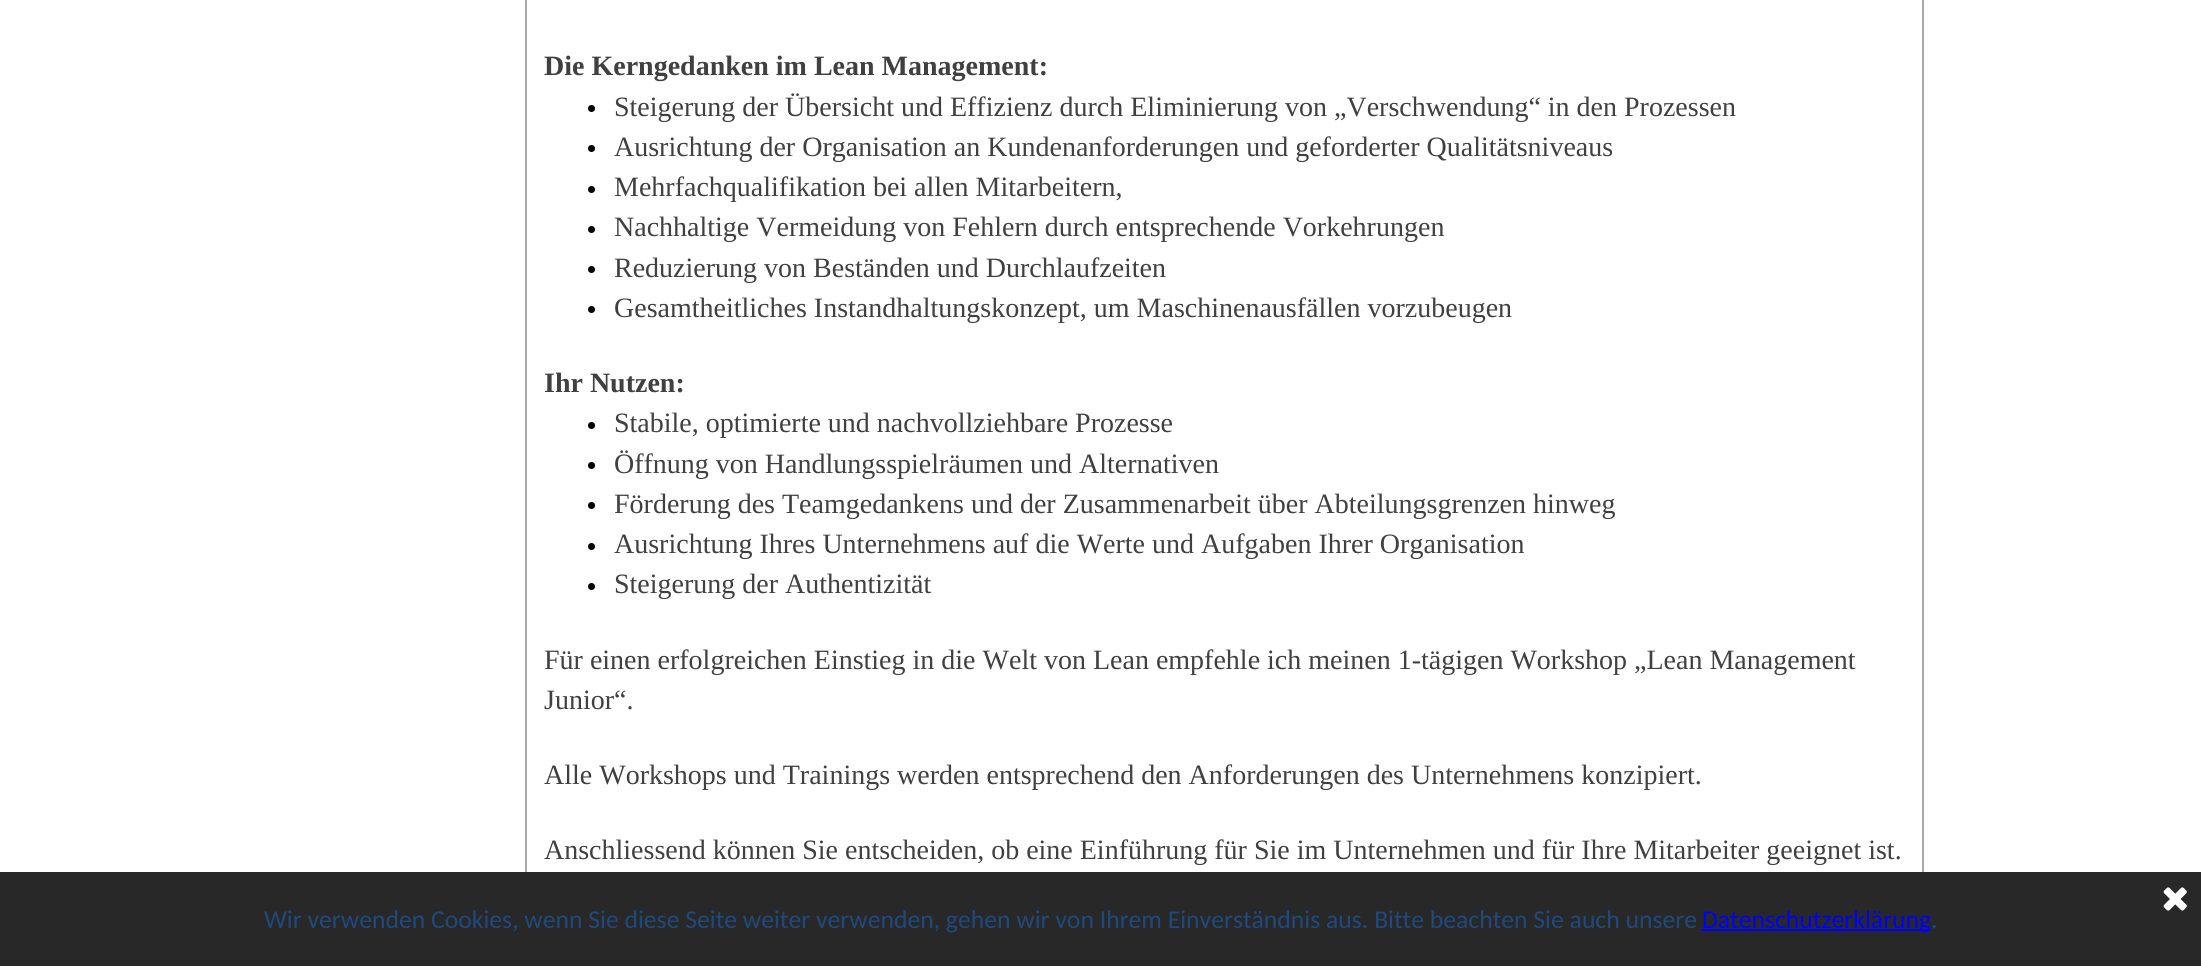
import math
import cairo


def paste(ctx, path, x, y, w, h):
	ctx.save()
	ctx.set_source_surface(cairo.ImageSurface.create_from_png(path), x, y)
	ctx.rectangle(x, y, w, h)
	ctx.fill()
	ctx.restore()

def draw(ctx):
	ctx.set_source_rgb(1, 1, 1)
	ctx.paint()
	ctx.set_source_rgb(0.663, 0.663, 0.663)
	ctx.rectangle(525, 0, 2, 872)
	ctx.fill()
	ctx.rectangle(1922, 0, 2, 872)
	ctx.fill()
	ctx.select_font_face('Liberation Serif', cairo.FONT_SLANT_NORMAL, cairo.FONT_WEIGHT_BOLD)
	ctx.set_font_size(28)
	ctx.set_source_rgb(0.251, 0.251, 0.251)
	ctx.move_to(544, 75)
	ctx.show_text('Die Kerngedanken im Lean Management:')
	ctx.set_source_rgb(0, 0, 0)
	ctx.new_path()
	ctx.arc(591.5, 108.5, 3.5, 0, 2 * math.pi)
	ctx.fill()
	ctx.select_font_face('Liberation Serif')
	ctx.set_source_rgb(0.251, 0.251, 0.251)
	ctx.move_to(614, 116)
	ctx.show_text('Steigerung der Übersicht und Effizienz durch Eliminierung von „Verschwendung“ in den Prozessen')
	ctx.set_source_rgb(0, 0, 0)
	ctx.new_path()
	ctx.arc(591.5, 148.5, 3.5, 0, 2 * math.pi)
	ctx.fill()
	ctx.set_source_rgb(0.251, 0.251, 0.251)
	ctx.move_to(614, 156)
	ctx.show_text('Ausrichtung der Organisation an Kundenanforderungen und geforderter Qualitätsniveaus')
	ctx.set_source_rgb(0, 0, 0)
	ctx.new_path()
	ctx.arc(591.5, 189.5, 3.5, 0, 2 * math.pi)
	ctx.fill()
	ctx.set_source_rgb(0.251, 0.251, 0.251)
	ctx.move_to(614, 196)
	ctx.show_text('Mehrfachqualifikation bei allen Mitarbeitern,')
	ctx.set_source_rgb(0, 0, 0)
	ctx.new_path()
	ctx.arc(591.5, 229.5, 3.5, 0, 2 * math.pi)
	ctx.fill()
	ctx.set_source_rgb(0.251, 0.251, 0.251)
	ctx.move_to(614, 236)
	ctx.show_text('Nachhaltige Vermeidung von Fehlern durch entsprechende Vorkehrungen')
	ctx.set_source_rgb(0, 0, 0)
	ctx.new_path()
	ctx.arc(591.5, 269.5, 3.5, 0, 2 * math.pi)
	ctx.fill()
	ctx.set_source_rgb(0.251, 0.251, 0.251)
	ctx.move_to(614, 277)
	ctx.show_text('Reduzierung von Beständen und Durchlaufzeiten')
	ctx.set_source_rgb(0, 0, 0)
	ctx.new_path()
	ctx.arc(591.5, 309.5, 3.5, 0, 2 * math.pi)
	ctx.fill()
	ctx.set_source_rgb(0.251, 0.251, 0.251)
	ctx.move_to(614, 317)
	ctx.show_text('Gesamtheitliches Instandhaltungskonzept, um Maschinenausfällen vorzubeugen')
	ctx.select_font_face('Liberation Serif', cairo.FONT_SLANT_NORMAL, cairo.FONT_WEIGHT_BOLD)
	ctx.move_to(544, 392)
	ctx.show_text('Ihr Nutzen:')
	ctx.set_source_rgb(0, 0, 0)
	ctx.new_path()
	ctx.arc(591.5, 425.5, 3.5, 0, 2 * math.pi)
	ctx.fill()
	ctx.select_font_face('Liberation Serif')
	ctx.set_source_rgb(0.251, 0.251, 0.251)
	ctx.move_to(614, 432)
	ctx.show_text('Stabile, optimierte und nachvollziehbare Prozesse')
	ctx.set_source_rgb(0, 0, 0)
	ctx.new_path()
	ctx.arc(591.5, 465.5, 3.5, 0, 2 * math.pi)
	ctx.fill()
	ctx.set_source_rgb(0.251, 0.251, 0.251)
	ctx.move_to(614, 473)
	ctx.show_text('Öffnung von Handlungsspielräumen und Alternativen')
	ctx.set_source_rgb(0, 0, 0)
	ctx.new_path()
	ctx.arc(591.5, 505.5, 3.5, 0, 2 * math.pi)
	ctx.fill()
	ctx.set_source_rgb(0.251, 0.251, 0.251)
	ctx.move_to(614, 513)
	ctx.show_text('Förderung des Teamgedankens und der Zusammenarbeit über Abteilungsgrenzen hinweg')
	ctx.set_source_rgb(0, 0, 0)
	ctx.new_path()
	ctx.arc(591.5, 546.5, 3.5, 0, 2 * math.pi)
	ctx.fill()
	ctx.set_source_rgb(0.251, 0.251, 0.251)
	ctx.move_to(614, 553)
	ctx.show_text('Ausrichtung Ihres Unternehmens auf die Werte und Aufgaben Ihrer Organisation')
	ctx.set_source_rgb(0, 0, 0)
	ctx.new_path()
	ctx.arc(591.5, 586.5, 3.5, 0, 2 * math.pi)
	ctx.fill()
	ctx.set_source_rgb(0.251, 0.251, 0.251)
	for x, y, s in [
		(614, 593, 'Steigerung der Authentizität'),
		(544, 669, 'Für einen erfolgreichen Einstieg in die Welt von Lean empfehle ich meinen 1-tägigen Workshop „Lean Management'),
		(544, 709, 'Junior“.'),
		(544, 784, 'Alle Workshops und Trainings werden entsprechend den Anforderungen des Unternehmens konzipiert.'),
		(544, 859, 'Anschliessend können Sie entscheiden, ob eine Einführung für Sie im Unternehmen und für Ihre Mitarbeiter geeignet ist.'),
	]:
		ctx.move_to(x, y)
		ctx.show_text(s)
	ctx.set_source_rgb(0.157, 0.157, 0.157)
	ctx.rectangle(0, 872, 2201, 94)
	ctx.fill()
	paste(ctx, 'media/1.png', 2163, 887, 24, 24)
	ctx.select_font_face('Carlito')
	ctx.set_font_size(25.67)
	ctx.set_source_rgb(0.122, 0.286, 0.49)
	ctx.move_to(264, 928)
	ctx.show_text('Wir verwenden Cookies, wenn Sie diese Seite weiter verwenden, gehen wir von Ihrem Einverständnis aus. Bitte beachten Sie auch unsere')
	ctx.set_source_rgb(0, 0, 1)
	ctx.rectangle(1701, 929, 229, 2)
	ctx.fill()
	ctx.move_to(1702, 928)
	ctx.show_text('Datenschutzerklärung')
	ctx.set_source_rgb(0.122, 0.286, 0.49)
	ctx.move_to(1931, 928)
	ctx.show_text('.')


surface = cairo.ImageSurface(cairo.FORMAT_RGB24, 2201, 966)
ctx = cairo.Context(surface)
options = cairo.FontOptions()
options.set_hint_metrics(cairo.HINT_METRICS_OFF)
options.set_hint_style(cairo.HINT_STYLE_NONE)
ctx.set_font_options(options)
ctx.set_miter_limit(4)
draw(ctx)
surface.write_to_png('image.png')
